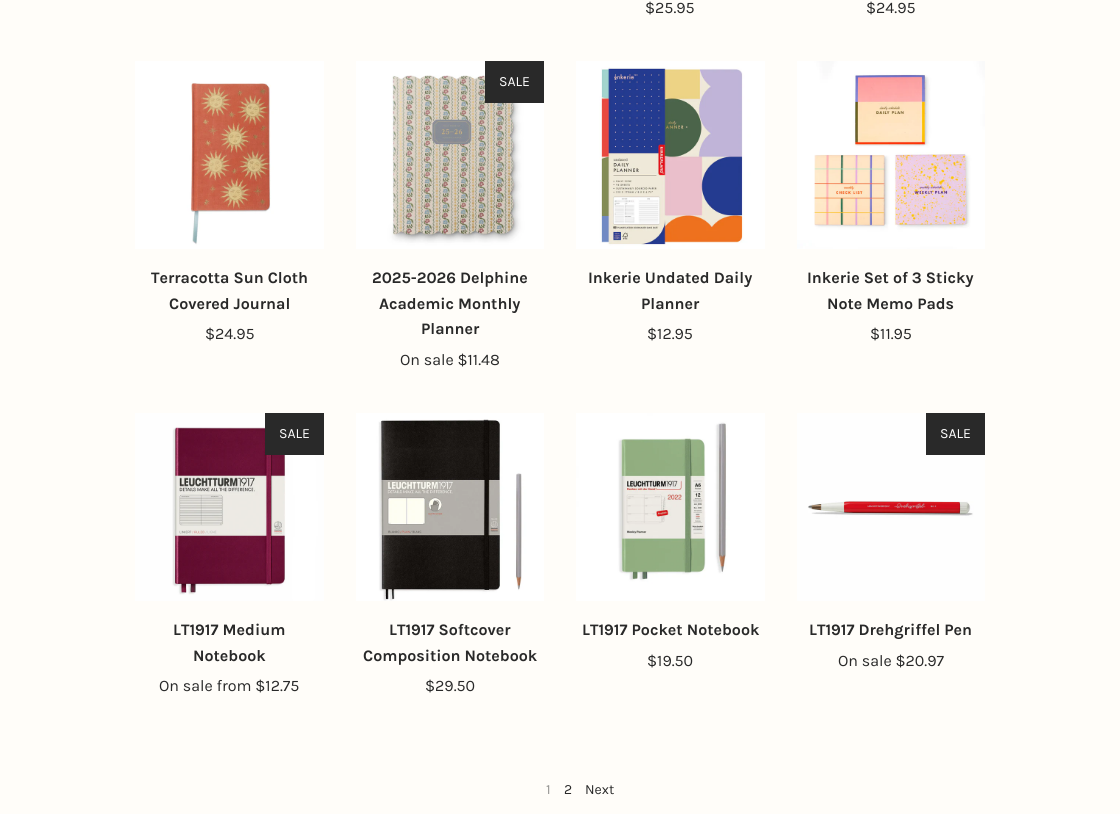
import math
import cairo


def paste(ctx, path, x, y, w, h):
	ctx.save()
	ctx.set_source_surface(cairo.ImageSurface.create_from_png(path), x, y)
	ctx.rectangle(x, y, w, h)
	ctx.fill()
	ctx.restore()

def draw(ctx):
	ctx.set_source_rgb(1, 0.992, 0.973)
	ctx.paint()
	ctx.select_font_face('Karla')
	ctx.set_font_size(16)
	ctx.set_source_rgb(0.161, 0.161, 0.161)
	ctx.move_to(645, 13)
	ctx.show_text('$25.95')
	ctx.move_to(866, 13)
	ctx.show_text('$24.95')
	paste(ctx, 'media/1.png', 135, 61, 189, 188)
	ctx.select_font_face('Karla', cairo.FONT_SLANT_NORMAL, cairo.FONT_WEIGHT_BOLD)
	ctx.move_to(151, 283)
	ctx.show_text('Terracotta Sun Cloth')
	ctx.move_to(169, 309)
	ctx.show_text('Covered Journal')
	ctx.select_font_face('Karla')
	ctx.move_to(205, 339)
	ctx.show_text('$24.95')
	paste(ctx, 'media/2.png', 356, 61, 188, 188)
	ctx.rectangle(485, 61, 59, 42)
	ctx.fill()
	ctx.set_font_size(14)
	ctx.set_source_rgb(1, 1, 1)
	ctx.move_to(499, 86)
	ctx.show_text('SALE')
	ctx.select_font_face('Karla', cairo.FONT_SLANT_NORMAL, cairo.FONT_WEIGHT_BOLD)
	ctx.set_font_size(16)
	ctx.set_source_rgb(0.161, 0.161, 0.161)
	for x, y, s in [
		(372, 283, '2025-2026 Delphine'),
		(379, 309, 'Academic Monthly'),
		(421, 334, 'Planner'),
	]:
		ctx.move_to(x, y)
		ctx.show_text(s)
	ctx.select_font_face('Karla')
	ctx.move_to(400, 365)
	ctx.show_text('On sale $11.48')
	paste(ctx, 'media/3.png', 576, 61, 189, 188)
	ctx.select_font_face('Karla', cairo.FONT_SLANT_NORMAL, cairo.FONT_WEIGHT_BOLD)
	ctx.move_to(588, 283)
	ctx.show_text('Inkerie Undated Daily')
	ctx.move_to(641, 309)
	ctx.show_text('Planner')
	ctx.select_font_face('Karla')
	ctx.move_to(647, 339)
	ctx.show_text('$12.95')
	paste(ctx, 'media/4.png', 797, 61, 188, 188)
	ctx.select_font_face('Karla', cairo.FONT_SLANT_NORMAL, cairo.FONT_WEIGHT_BOLD)
	ctx.move_to(807, 283)
	ctx.show_text('Inkerie Set of 3 Sticky')
	ctx.move_to(827, 309)
	ctx.show_text('Note Memo Pads')
	ctx.select_font_face('Karla')
	ctx.move_to(870, 339)
	ctx.show_text('$11.95')
	paste(ctx, 'media/5.png', 135, 413, 189, 188)
	ctx.rectangle(265, 413, 59, 42)
	ctx.fill()
	ctx.set_font_size(14)
	ctx.set_source_rgb(1, 1, 1)
	ctx.move_to(279, 438)
	ctx.show_text('SALE')
	ctx.select_font_face('Karla', cairo.FONT_SLANT_NORMAL, cairo.FONT_WEIGHT_BOLD)
	ctx.set_font_size(16)
	ctx.set_source_rgb(0.161, 0.161, 0.161)
	ctx.move_to(173, 635)
	ctx.show_text('LT1917 Medium')
	ctx.move_to(193, 661)
	ctx.show_text('Notebook')
	ctx.select_font_face('Karla')
	ctx.move_to(159, 691)
	ctx.show_text('On sale from $12.75')
	paste(ctx, 'media/6.png', 356, 413, 188, 188)
	ctx.select_font_face('Karla', cairo.FONT_SLANT_NORMAL, cairo.FONT_WEIGHT_BOLD)
	ctx.move_to(389, 635)
	ctx.show_text('LT1917 Softcover')
	ctx.move_to(363, 661)
	ctx.show_text('Composition Notebook')
	ctx.select_font_face('Karla')
	ctx.move_to(425, 691)
	ctx.show_text('$29.50')
	paste(ctx, 'media/7.png', 576, 413, 189, 188)
	ctx.select_font_face('Karla', cairo.FONT_SLANT_NORMAL, cairo.FONT_WEIGHT_BOLD)
	ctx.move_to(582, 635)
	ctx.show_text('LT1917 Pocket Notebook')
	ctx.select_font_face('Karla')
	ctx.move_to(647, 666)
	ctx.show_text('$19.50')
	paste(ctx, 'media/8.png', 797, 413, 188, 188)
	ctx.rectangle(926, 413, 59, 42)
	ctx.fill()
	ctx.set_font_size(14)
	ctx.set_source_rgb(1, 1, 1)
	ctx.move_to(940, 438)
	ctx.show_text('SALE')
	ctx.select_font_face('Karla', cairo.FONT_SLANT_NORMAL, cairo.FONT_WEIGHT_BOLD)
	ctx.set_font_size(16)
	ctx.set_source_rgb(0.161, 0.161, 0.161)
	ctx.move_to(809, 635)
	ctx.show_text('LT1917 Drehgriffel Pen')
	ctx.select_font_face('Karla')
	ctx.move_to(838, 666)
	ctx.show_text('On sale $20.97')
	ctx.set_font_size(14)
	ctx.set_source_rgb(0.58, 0.576, 0.569)
	ctx.move_to(546, 794)
	ctx.show_text('1')
	ctx.set_source_rgb(0.161, 0.161, 0.161)
	ctx.move_to(564, 794)
	ctx.show_text('2')
	ctx.move_to(585, 794)
	ctx.show_text('Next')


surface = cairo.ImageSurface(cairo.FORMAT_RGB24, 1120, 814)
ctx = cairo.Context(surface)
options = cairo.FontOptions()
options.set_hint_metrics(cairo.HINT_METRICS_OFF)
options.set_hint_style(cairo.HINT_STYLE_NONE)
ctx.set_font_options(options)
ctx.set_miter_limit(4)
draw(ctx)
surface.write_to_png('image.png')
